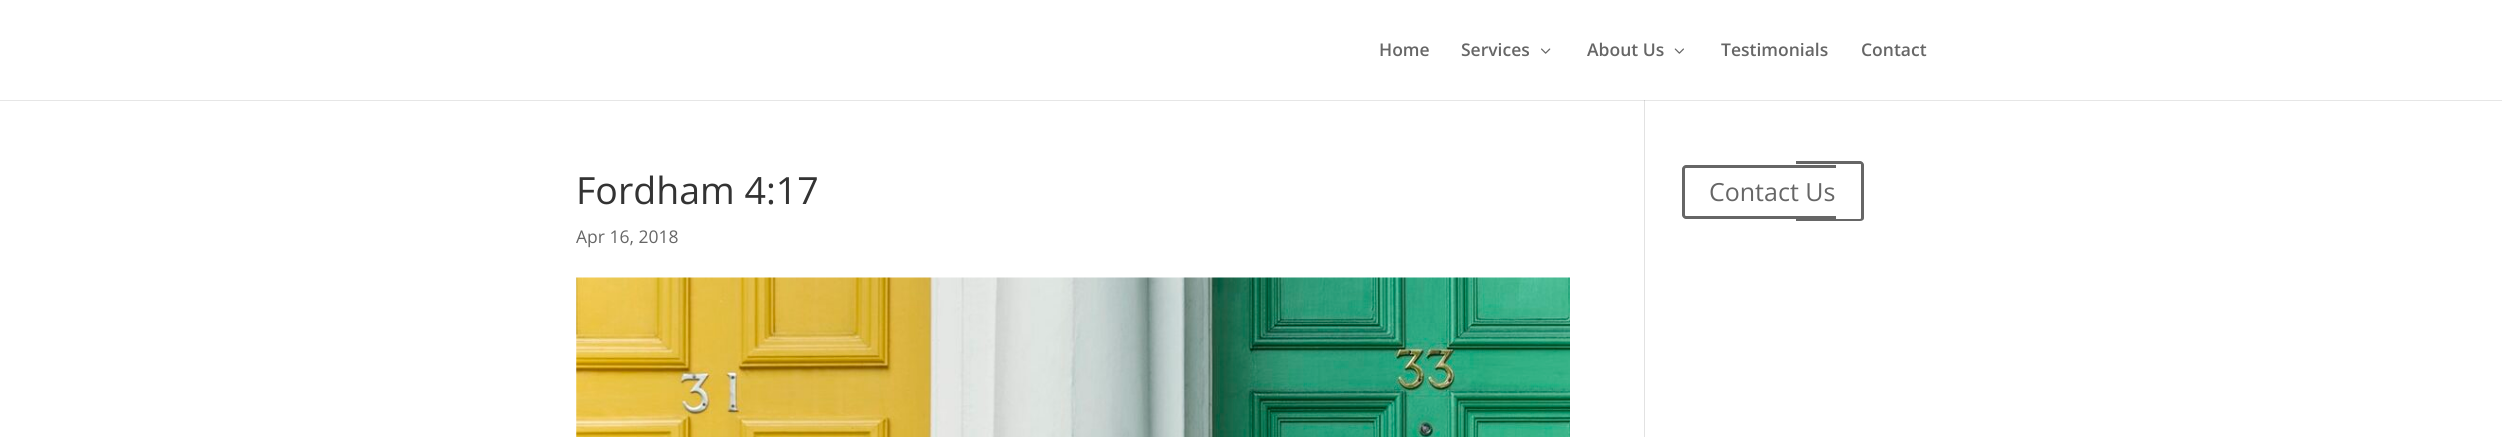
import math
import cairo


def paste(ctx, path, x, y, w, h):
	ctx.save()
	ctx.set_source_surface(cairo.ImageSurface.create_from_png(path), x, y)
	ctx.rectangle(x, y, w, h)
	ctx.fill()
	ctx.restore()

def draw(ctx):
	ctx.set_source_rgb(1, 1, 1)
	ctx.paint()
	ctx.set_source_rgb(0.886, 0.886, 0.886)
	ctx.rectangle(1644, 99, 1, 338)
	ctx.fill()
	ctx.set_source_rgba(0, 0, 0, 0.1)
	ctx.new_path()
	ctx.move_to(0, 100)
	ctx.line_to(0, 101)
	ctx.line_to(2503, 101)
	ctx.line_to(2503, 1)
	ctx.line_to(2502, 1)
	ctx.line_to(2502, 100)
	ctx.close_path()
	ctx.fill()
	ctx.set_source_rgb(1, 1, 1)
	ctx.rectangle(1644, 99, 1, 1)
	ctx.fill()
	ctx.select_font_face('Open Sans SemiBold')
	ctx.set_font_size(17.5)
	ctx.set_source_rgb(0.4, 0.4, 0.4)
	ctx.move_to(1379, 56)
	ctx.show_text('Home')
	ctx.move_to(1461, 56)
	ctx.show_text('Services')
	paste(ctx, 'media/1.png', 1541, 48, 10, 6)
	ctx.move_to(1587, 56)
	ctx.show_text('About Us')
	paste(ctx, 'media/2.png', 1674, 48, 10, 6)
	ctx.move_to(1721, 56)
	ctx.show_text('Testimonials')
	ctx.move_to(1861, 56)
	ctx.show_text('Contact')
	ctx.select_font_face('Open Sans')
	ctx.set_font_size(37.5)
	ctx.set_source_rgb(0.2, 0.2, 0.2)
	ctx.move_to(576, 204)
	ctx.show_text('Fordham 4:17')
	ctx.set_font_size(17.5)
	ctx.set_source_rgb(0.4, 0.4, 0.4)
	ctx.move_to(576, 243)
	ctx.show_text('Apr 16, 2018')
	paste(ctx, 'media/3.png', 576, 277, 994, 160)
	ctx.set_fill_rule(cairo.FILL_RULE_EVEN_ODD)
	ctx.new_path()
	ctx.move_to(1686, 165)
	ctx.line_to(1836, 165)
	ctx.line_to(1836, 219)
	ctx.line_to(1686, 219)
	ctx.curve_to(1684, 219, 1682, 217, 1682, 215)
	ctx.line_to(1682, 169)
	ctx.curve_to(1682, 167, 1684, 165, 1686, 165)
	ctx.close_path()
	ctx.move_to(1686, 168)
	ctx.line_to(1836, 168)
	ctx.line_to(1836, 216)
	ctx.line_to(1686, 216)
	ctx.curve_to(1686, 216, 1685, 216, 1685, 215)
	ctx.line_to(1685, 169)
	ctx.curve_to(1685, 168, 1686, 168, 1686, 168)
	ctx.close_path()
	ctx.fill()
	ctx.new_path()
	ctx.move_to(1796, 161)
	ctx.line_to(1860, 161)
	ctx.curve_to(1862, 161, 1864, 163, 1864, 165)
	ctx.line_to(1864, 218)
	ctx.curve_to(1864, 220, 1862, 221, 1860, 221)
	ctx.line_to(1796, 221)
	ctx.close_path()
	ctx.move_to(1796, 164)
	ctx.line_to(1860, 164)
	ctx.curve_to(1861, 164, 1861, 164, 1861, 165)
	ctx.line_to(1861, 218)
	ctx.curve_to(1861, 218, 1861, 219, 1860, 219)
	ctx.line_to(1796, 219)
	ctx.close_path()
	ctx.fill()
	ctx.set_font_size(25)
	ctx.move_to(1709, 201)
	ctx.show_text('Contact Us')


surface = cairo.ImageSurface(cairo.FORMAT_RGB24, 2502, 437)
ctx = cairo.Context(surface)
options = cairo.FontOptions()
options.set_hint_metrics(cairo.HINT_METRICS_OFF)
options.set_hint_style(cairo.HINT_STYLE_NONE)
ctx.set_font_options(options)
ctx.set_miter_limit(4)
draw(ctx)
surface.write_to_png('image.png')
